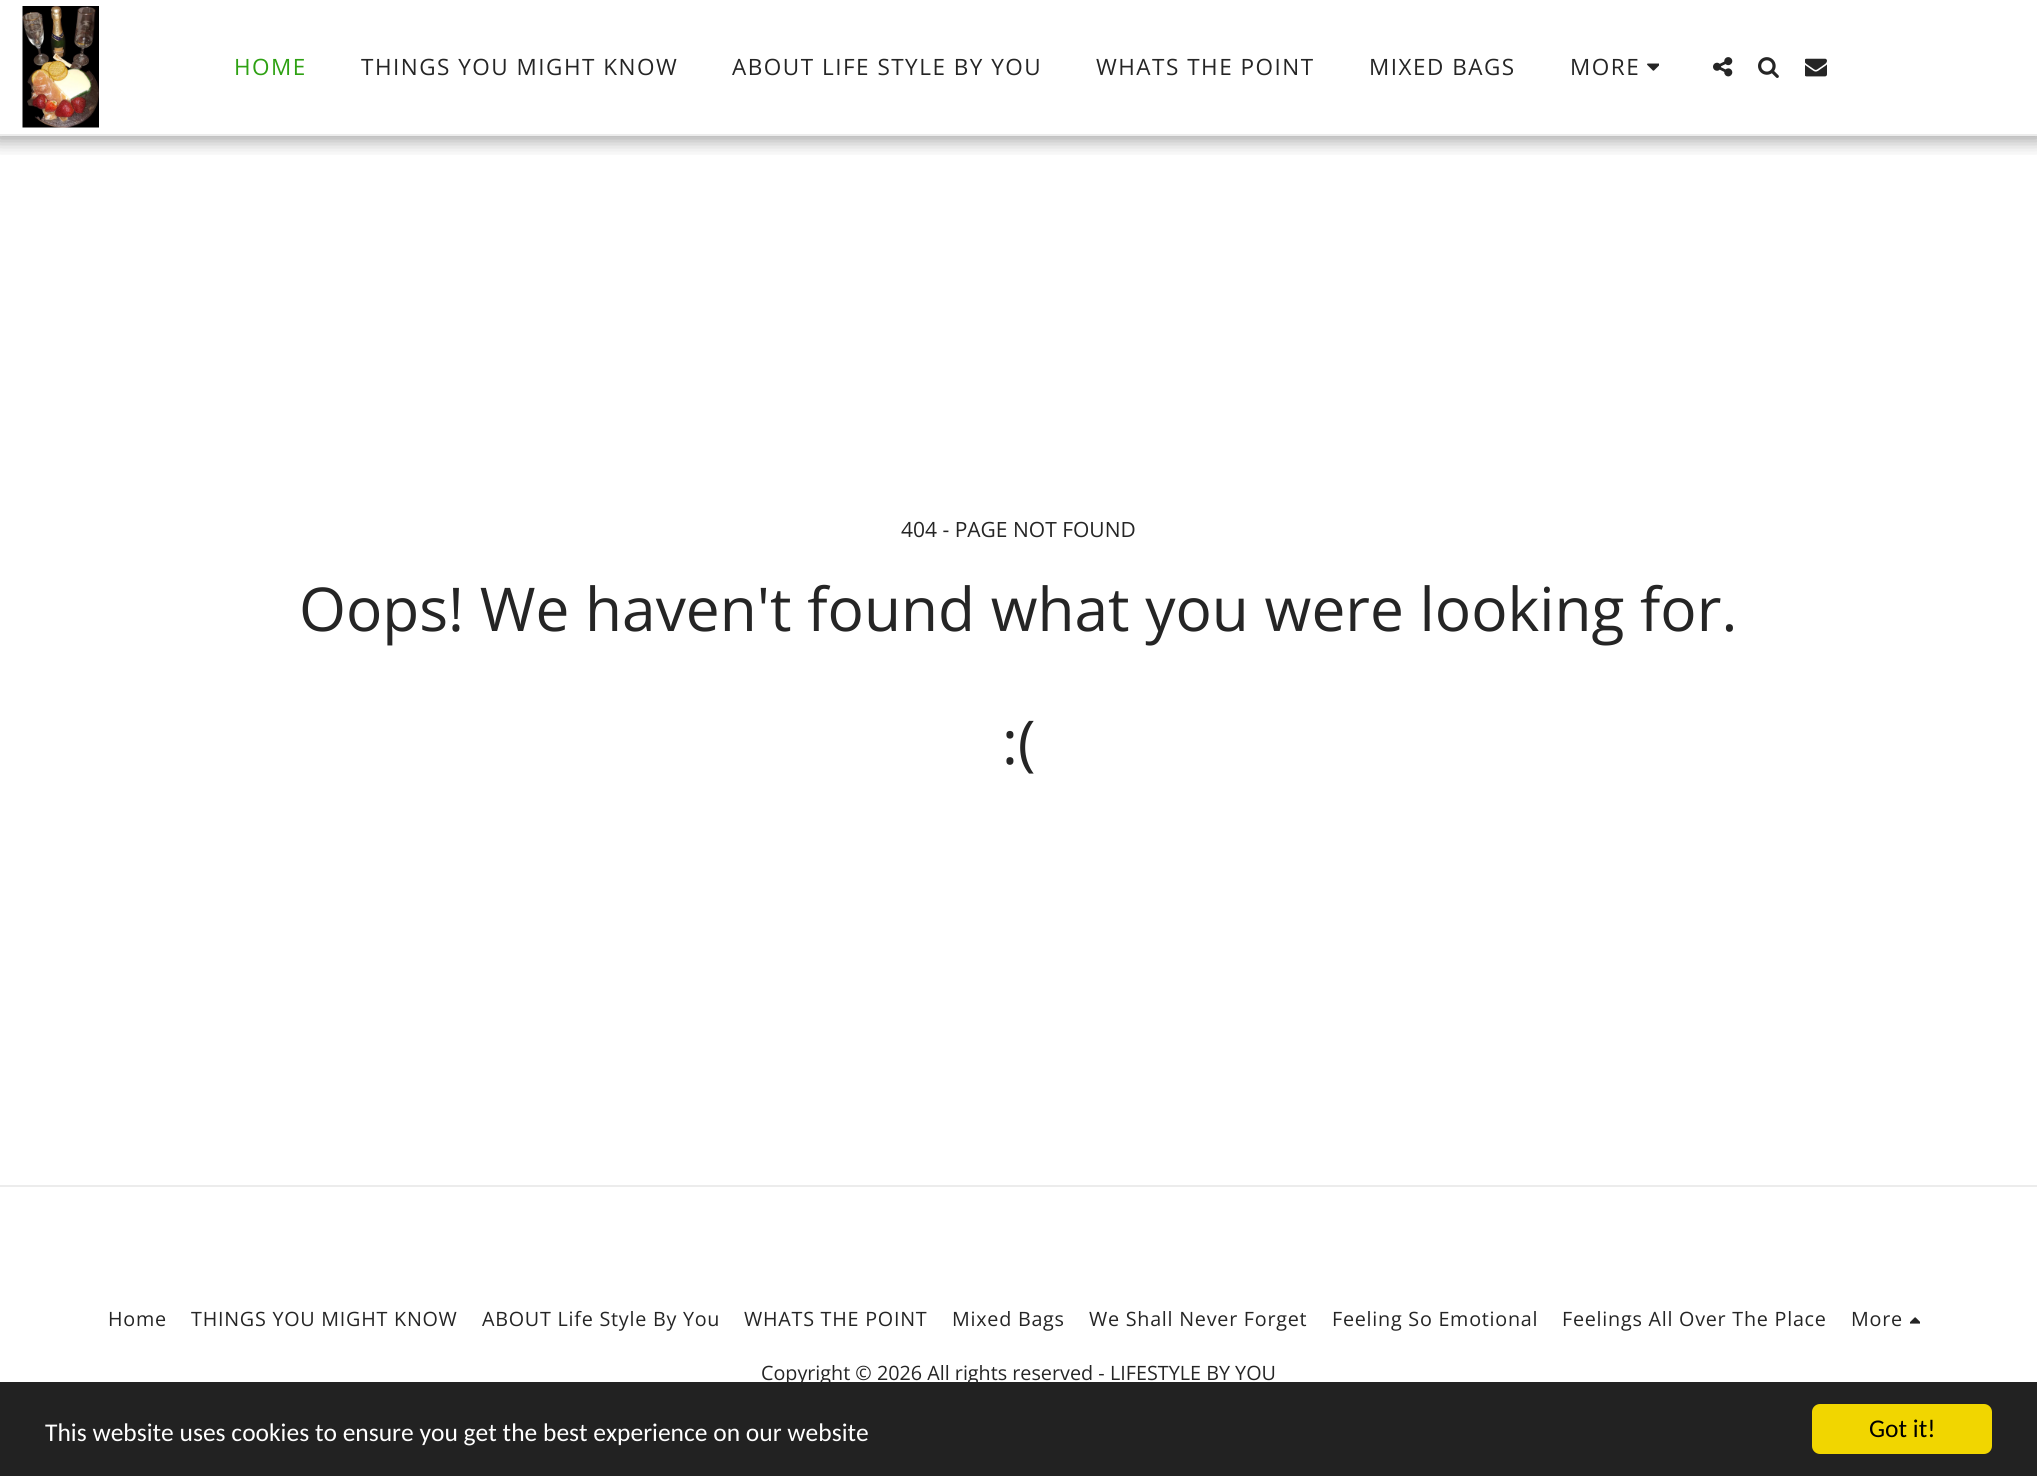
import math
import cairo


def write_spaced(ctx, x, y, s, letter, word):
	ctx.move_to(x, y)
	for ch in s:
		ctx.show_text(ch)
		ctx.rel_move_to(letter + word * (ch == ' '), 0)

def round_path(ctx, x, y, w, h, r):
	ctx.new_sub_path()
	for i, (u, v) in enumerate([(x + w - r, y + h - r), (x + r, y + h - r), (x + r, y + r), (x + w - r, y + r)]):
		ctx.arc(u, v, r, i * math.pi / 2, (i + 1) * math.pi / 2)
	ctx.close_path()

def blur_box(ctx, x, y, w, h, r, blur, alpha):
	ctx.push_group_with_content(cairo.CONTENT_ALPHA)
	ctx.set_operator(cairo.OPERATOR_SOURCE)
	for i in range(15, -16, -2):
		e = blur * i / 6
		if min(w, h) + 2 * e > 0:
			ctx.set_source_rgba(0, 0, 0, alpha * math.erfc((i - 1) / 8.5) / 2)
			round_path(ctx, x - e, y - e, w + 2 * e, h + 2 * e, max(0, min(r + e + blur * .6, min(w, h) / 2 + e)))
			ctx.fill()
	ctx.mask(ctx.pop_group())

def paste(ctx, path, x, y, w, h):
	ctx.save()
	ctx.set_source_surface(cairo.ImageSurface.create_from_png(path), x, y)
	ctx.rectangle(x, y, w, h)
	ctx.fill()
	ctx.restore()

def draw(ctx):
	ctx.set_source_rgb(1, 1, 1)
	ctx.paint()
	ctx.save()
	ctx.rectangle(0, 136, 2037, 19)
	ctx.clip()
	ctx.set_source_rgb(0, 0, 0)
	blur_box(ctx, -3, 0, 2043, 141, 0, 9, 0.35)
	ctx.restore()
	ctx.set_source_rgb(0.922, 0.922, 0.922)
	ctx.rectangle(0, 134, 2037, 2)
	ctx.fill()
	paste(ctx, 'media/1.png', 22, 6, 77, 122)
	ctx.select_font_face('Open Sans')
	ctx.set_font_size(22.5)
	ctx.set_source_rgb(0.18, 0.631, 0.075)
	write_spaced(ctx, 234, 75, 'HOME', 1.5, 0)
	ctx.set_source_rgb(0.145, 0.145, 0.145)
	for x, y, s in [
		(361, 75, 'THINGS YOU MIGHT KNOW'),
		(732, 75, 'ABOUT LIFE STYLE BY YOU'),
		(1096, 75, 'WHATS THE POINT'),
		(1369, 75, 'MIXED BAGS'),
		(1570, 75, 'MORE'),
	]:
		write_spaced(ctx, x, y, s, 1.5, 0)
	paste(ctx, 'media/2.png', 1647, 63, 12, 8)
	paste(ctx, 'media/3.png', 1713, 57, 20, 20)
	paste(ctx, 'media/4.png', 1758, 57, 21, 21)
	paste(ctx, 'media/5.png', 1805, 58, 22, 19)
	ctx.set_font_size(21)
	ctx.move_to(901, 537)
	ctx.show_text('404 - PAGE NOT FOUND')
	ctx.set_font_size(60.4)
	ctx.move_to(299, 631)
	ctx.show_text('Oops! We haven\'t found what you were looking for.')
	ctx.move_to(1002, 764)
	ctx.show_text(':(')
	ctx.set_source_rgb(0.922, 0.922, 0.922)
	ctx.rectangle(0, 1185, 2037, 2)
	ctx.fill()
	ctx.set_font_size(19.75)
	ctx.set_source_rgb(0.145, 0.145, 0.145)
	for x, y, s in [
		(108, 1326, 'Home'),
		(191, 1326, 'THINGS YOU MIGHT KNOW'),
		(482, 1326, 'ABOUT Life Style By You'),
		(744, 1326, 'WHATS THE POINT'),
		(952, 1326, 'Mixed Bags'),
		(1089, 1326, 'We Shall Never Forget'),
		(1332, 1326, 'Feeling So Emotional'),
		(1562, 1326, 'Feelings All Over The Place'),
		(1851, 1326, 'More'),
	]:
		write_spaced(ctx, x, y, s, 0.75, 0)
	paste(ctx, 'media/6.png', 1910, 1317, 10, 7)
	ctx.move_to(761, 1380)
	ctx.show_text('Copyright © 2026 All rights reserved -')
	ctx.move_to(1110, 1380)
	ctx.show_text('LIFESTYLE BY YOU')
	ctx.set_source_rgb(0.133, 0.133, 0.133)
	ctx.rectangle(0, 1382, 2037, 94)
	ctx.fill()
	ctx.select_font_face('Carlito')
	ctx.set_font_size(25.5)
	ctx.set_source_rgb(1, 1, 1)
	ctx.move_to(45, 1441)
	ctx.show_text('This website uses cookies to ensure you get the best experience on our website')
	ctx.set_source_rgb(0.945, 0.839, 0)
	round_path(ctx, 1812, 1404, 180, 50, 8)
	ctx.fill()
	ctx.set_source_rgb(0, 0, 0)
	ctx.move_to(1869, 1437)
	ctx.show_text('Got it!')


surface = cairo.ImageSurface(cairo.FORMAT_RGB24, 2037, 1476)
ctx = cairo.Context(surface)
options = cairo.FontOptions()
options.set_hint_metrics(cairo.HINT_METRICS_OFF)
options.set_hint_style(cairo.HINT_STYLE_NONE)
ctx.set_font_options(options)
ctx.set_miter_limit(4)
draw(ctx)
surface.write_to_png('image.png')
